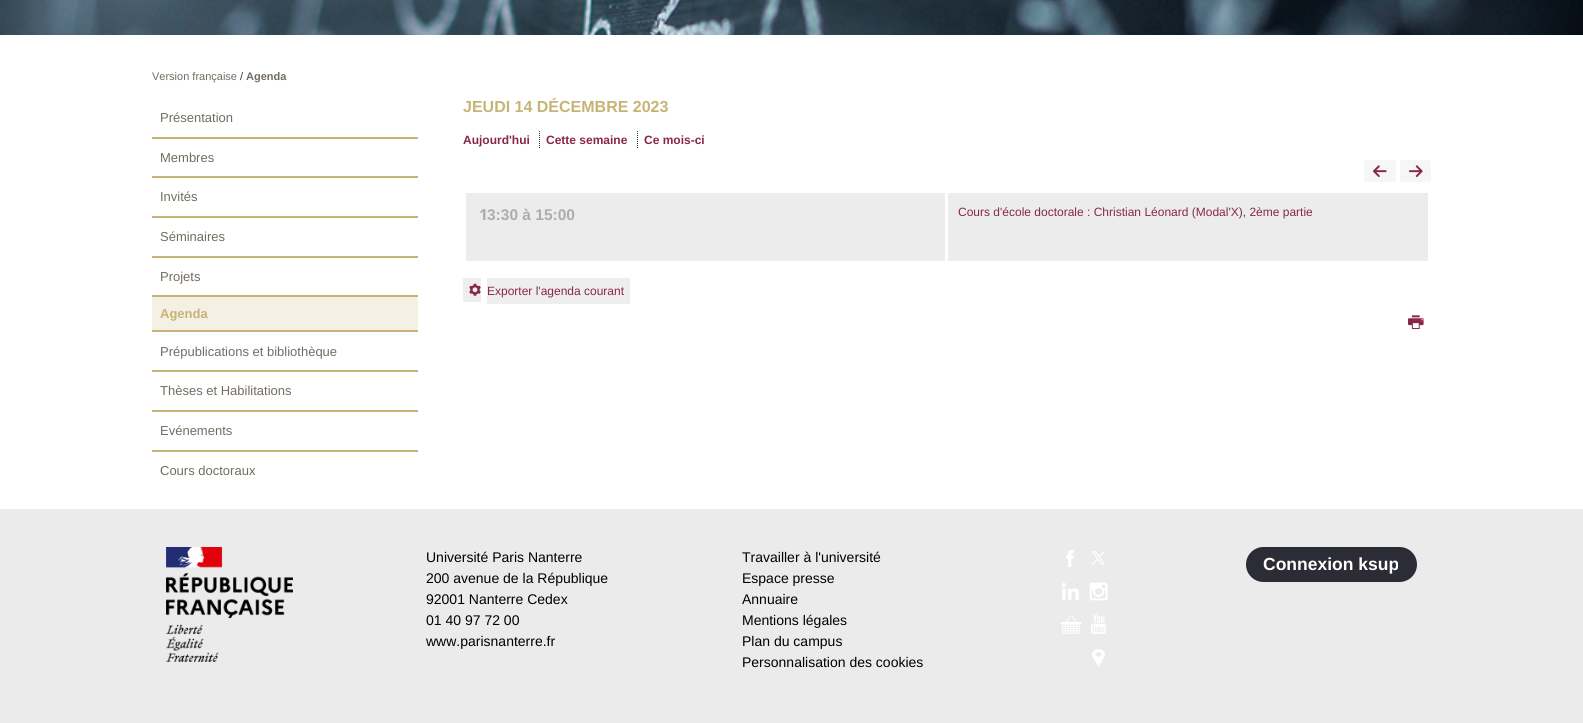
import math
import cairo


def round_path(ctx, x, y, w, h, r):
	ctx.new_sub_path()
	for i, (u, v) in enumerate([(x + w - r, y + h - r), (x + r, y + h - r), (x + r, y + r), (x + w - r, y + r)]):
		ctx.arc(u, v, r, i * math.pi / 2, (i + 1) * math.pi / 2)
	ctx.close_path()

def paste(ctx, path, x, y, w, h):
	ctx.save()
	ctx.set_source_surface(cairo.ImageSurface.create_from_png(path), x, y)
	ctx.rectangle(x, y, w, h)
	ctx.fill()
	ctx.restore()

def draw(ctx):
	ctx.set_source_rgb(1, 1, 1)
	ctx.paint()
	paste(ctx, 'media/1.png', 0, 0, 1583, 35)
	ctx.select_font_face('Liberation Sans')
	ctx.set_font_size(11)
	ctx.set_source_rgb(0.451, 0.424, 0.388)
	ctx.move_to(152, 80)
	ctx.show_text('Version française')
	ctx.set_source_rgb(0.2, 0.2, 0.2)
	ctx.move_to(240, 80)
	ctx.show_text('/')
	ctx.select_font_face('Liberation Sans', cairo.FONT_SLANT_NORMAL, cairo.FONT_WEIGHT_BOLD)
	ctx.set_source_rgb(0.451, 0.424, 0.388)
	ctx.move_to(246, 80)
	ctx.show_text('Agenda')
	ctx.set_source_rgb(0.776, 0.706, 0.467)
	ctx.rectangle(152, 137, 266, 2)
	ctx.fill()
	ctx.select_font_face('Liberation Sans')
	ctx.set_font_size(13)
	ctx.set_source_rgb(0.451, 0.424, 0.388)
	ctx.move_to(160, 122)
	ctx.show_text('Présentation')
	ctx.set_source_rgb(0.776, 0.706, 0.467)
	ctx.rectangle(152, 176, 266, 2)
	ctx.fill()
	ctx.set_source_rgb(0.451, 0.424, 0.388)
	ctx.move_to(160, 162)
	ctx.show_text('Membres')
	ctx.set_source_rgb(0.776, 0.706, 0.467)
	ctx.rectangle(152, 216, 266, 2)
	ctx.fill()
	ctx.set_source_rgb(0.451, 0.424, 0.388)
	ctx.move_to(160, 201)
	ctx.show_text('Invités')
	ctx.set_source_rgb(0.776, 0.706, 0.467)
	ctx.rectangle(152, 256, 266, 2)
	ctx.fill()
	ctx.set_source_rgb(0.451, 0.424, 0.388)
	ctx.move_to(160, 241)
	ctx.show_text('Séminaires')
	ctx.set_source_rgb(0.776, 0.706, 0.467)
	ctx.rectangle(152, 295, 266, 2)
	ctx.fill()
	ctx.set_source_rgb(0.451, 0.424, 0.388)
	ctx.move_to(160, 281)
	ctx.show_text('Projets')
	ctx.set_source_rgb(0.957, 0.941, 0.894)
	ctx.rectangle(152, 297, 266, 33)
	ctx.fill()
	ctx.set_source_rgb(0.776, 0.706, 0.467)
	ctx.rectangle(152, 330, 266, 2)
	ctx.fill()
	ctx.select_font_face('Liberation Sans', cairo.FONT_SLANT_NORMAL, cairo.FONT_WEIGHT_BOLD)
	ctx.move_to(160, 318)
	ctx.show_text('Agenda')
	ctx.rectangle(152, 370, 266, 2)
	ctx.fill()
	ctx.select_font_face('Liberation Sans')
	ctx.set_source_rgb(0.451, 0.424, 0.388)
	ctx.move_to(160, 356)
	ctx.show_text('Prépublications et bibliothèque')
	ctx.set_source_rgb(0.776, 0.706, 0.467)
	ctx.rectangle(152, 410, 266, 2)
	ctx.fill()
	ctx.set_source_rgb(0.451, 0.424, 0.388)
	ctx.move_to(160, 395)
	ctx.show_text('Thèses et Habilitations')
	ctx.set_source_rgb(0.776, 0.706, 0.467)
	ctx.rectangle(152, 450, 266, 2)
	ctx.fill()
	ctx.set_source_rgb(0.451, 0.424, 0.388)
	ctx.move_to(160, 435)
	ctx.show_text('Evénements')
	ctx.move_to(160, 475)
	ctx.show_text('Cours doctoraux')
	ctx.select_font_face('Liberation Sans', cairo.FONT_SLANT_NORMAL, cairo.FONT_WEIGHT_BOLD)
	ctx.set_font_size(16)
	ctx.set_source_rgb(0.776, 0.706, 0.467)
	ctx.move_to(463, 112)
	ctx.show_text('JEUDI 14 DÉCEMBRE 2023')
	ctx.set_font_size(12)
	ctx.set_source_rgb(0.533, 0.157, 0.271)
	ctx.move_to(463, 144)
	ctx.show_text('Aujourd\'hui')
	ctx.new_path()
	ctx.move_to(539.5, 131)
	ctx.line_to(539.5, 149)
	ctx.set_source_rgb(0.2, 0.2, 0.2)
	ctx.set_line_width(1)
	ctx.set_dash([1, 1])
	ctx.stroke()
	ctx.set_source_rgb(0.533, 0.157, 0.271)
	ctx.move_to(546, 144)
	ctx.show_text('Cette semaine')
	ctx.new_path()
	ctx.move_to(637.5, 131)
	ctx.line_to(637.5, 149)
	ctx.set_source_rgb(0.2, 0.2, 0.2)
	ctx.stroke()
	ctx.set_source_rgb(0.533, 0.157, 0.271)
	ctx.move_to(644, 144)
	ctx.show_text('Ce mois-ci')
	ctx.set_source_rgb(0.961, 0.961, 0.961)
	round_path(ctx, 1364, 160, 32, 22, 3)
	ctx.fill()
	round_path(ctx, 1400, 160, 31, 22, 3)
	ctx.fill()
	paste(ctx, 'media/2.png', 1373, 165, 14, 12)
	paste(ctx, 'media/3.png', 1409, 165, 14, 12)
	ctx.set_source_rgb(0.922, 0.922, 0.922)
	ctx.rectangle(466, 193, 962, 68)
	ctx.fill()
	ctx.select_font_face('Noto Sans', cairo.FONT_SLANT_NORMAL, cairo.FONT_WEIGHT_BOLD)
	ctx.set_font_size(15.5)
	ctx.set_source_rgb(0.678, 0.678, 0.678)
	ctx.move_to(479, 220)
	ctx.show_text('1')
	ctx.select_font_face('Liberation Sans', cairo.FONT_SLANT_NORMAL, cairo.FONT_WEIGHT_BOLD)
	ctx.move_to(487, 220)
	ctx.show_text('3:30 à 15:00')
	ctx.set_source_rgb(1, 1, 1)
	ctx.rectangle(945, 190, 3, 74)
	ctx.fill()
	ctx.select_font_face('Liberation Sans')
	ctx.set_font_size(12)
	ctx.set_source_rgb(0.533, 0.157, 0.271)
	ctx.move_to(958, 216)
	ctx.show_text('Cours d\'école doctorale : Christian Léonard (Modal\'X), 2ème partie')
	ctx.set_source_rgb(0.933, 0.933, 0.933)
	ctx.rectangle(463, 278, 18, 24)
	ctx.fill()
	paste(ctx, 'media/4.png', 469, 283, 12, 13)
	ctx.rectangle(487, 278, 143, 26)
	ctx.fill()
	ctx.set_source_rgb(0.533, 0.157, 0.271)
	ctx.move_to(487, 295)
	ctx.show_text('Exporter l\'agenda courant')
	paste(ctx, 'media/5.png', 1408, 315, 16, 14)
	ctx.set_source_rgb(0.918, 0.918, 0.918)
	ctx.rectangle(0, 509, 1583, 214)
	ctx.fill()
	paste(ctx, 'media/6.png', 166, 547, 127, 115)
	ctx.set_font_size(14)
	ctx.set_source_rgb(0, 0, 0)
	for x, y, s in [
		(426, 562, 'Université Paris Nanterre'),
		(426, 583, '200 avenue de la République'),
		(426, 604, '92001 Nanterre Cedex'),
		(426, 625, '01 40 97 72 00'),
		(426, 646, 'www.parisnanterre.fr'),
		(742, 562, 'Travailler à l\'université'),
		(742, 583, 'Espace presse'),
		(742, 604, 'Annuaire'),
		(742, 625, 'Mentions légales'),
		(742, 646, 'Plan du campus'),
		(742, 667, 'Personnalisation des cookies'),
	]:
		ctx.move_to(x, y)
		ctx.show_text(s)
	paste(ctx, 'media/7.png', 1066, 550, 8, 17)
	paste(ctx, 'media/8.png', 1092, 551, 13, 14)
	paste(ctx, 'media/9.png', 1062, 583, 17, 17)
	paste(ctx, 'media/10.png', 1089, 582, 19, 19)
	paste(ctx, 'media/11.png', 1060, 615, 22, 19)
	paste(ctx, 'media/12.png', 1091, 614, 15, 20)
	paste(ctx, 'media/13.png', 1092, 649, 13, 18)
	ctx.set_source_rgb(0.173, 0.173, 0.212)
	round_path(ctx, 1246, 547, 171, 35, 17.5)
	ctx.fill()
	ctx.select_font_face('Liberation Sans', cairo.FONT_SLANT_NORMAL, cairo.FONT_WEIGHT_BOLD)
	ctx.set_font_size(17.5)
	ctx.set_source_rgb(1, 1, 1)
	ctx.move_to(1263, 570)
	ctx.show_text('Connexion ksup')


surface = cairo.ImageSurface(cairo.FORMAT_RGB24, 1583, 723)
ctx = cairo.Context(surface)
options = cairo.FontOptions()
options.set_hint_metrics(cairo.HINT_METRICS_OFF)
options.set_hint_style(cairo.HINT_STYLE_NONE)
ctx.set_font_options(options)
ctx.set_miter_limit(4)
draw(ctx)
surface.write_to_png('image.png')
